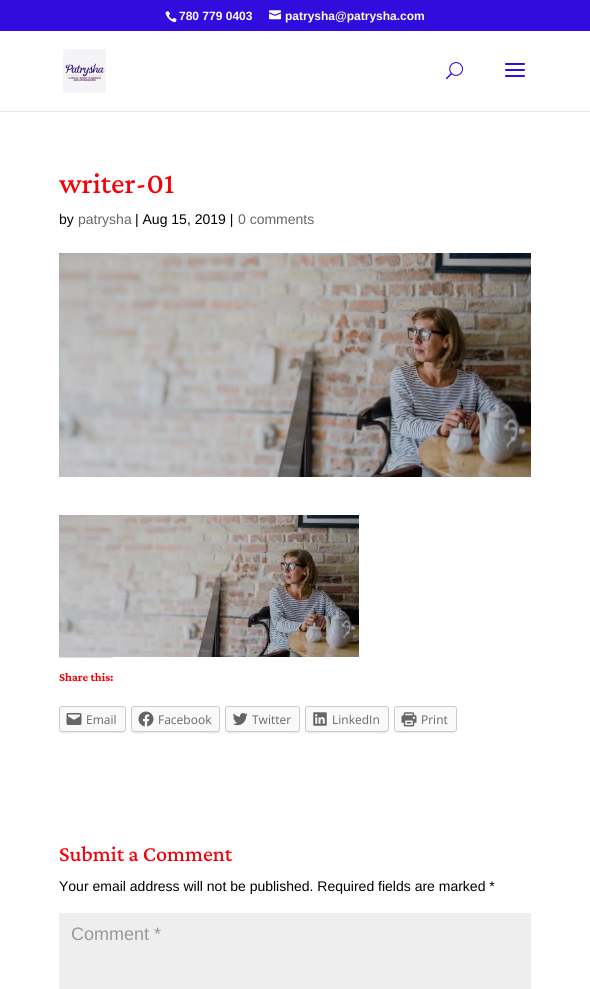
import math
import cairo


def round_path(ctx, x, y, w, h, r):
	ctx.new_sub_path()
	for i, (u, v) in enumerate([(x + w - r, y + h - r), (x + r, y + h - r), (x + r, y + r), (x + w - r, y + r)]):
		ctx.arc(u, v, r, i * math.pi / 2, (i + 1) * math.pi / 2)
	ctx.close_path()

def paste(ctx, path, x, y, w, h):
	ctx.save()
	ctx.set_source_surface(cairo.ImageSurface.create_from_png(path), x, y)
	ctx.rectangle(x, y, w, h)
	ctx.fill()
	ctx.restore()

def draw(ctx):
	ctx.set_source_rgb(1, 1, 1)
	ctx.paint()
	ctx.set_source_rgb(0.188, 0.051, 0.867)
	ctx.rectangle(0, 0, 590, 31)
	ctx.fill()
	paste(ctx, 'media/1.png', 165, 11, 12, 12)
	ctx.select_font_face('Liberation Sans', cairo.FONT_SLANT_NORMAL, cairo.FONT_WEIGHT_BOLD)
	ctx.set_font_size(12)
	ctx.set_source_rgb(1, 1, 1)
	ctx.move_to(179, 20)
	ctx.show_text('780 779 0403')
	paste(ctx, 'media/2.png', 269, 10, 12, 10)
	ctx.move_to(285, 20)
	ctx.show_text('patrysha@patrysha.com')
	ctx.set_source_rgb(0.902, 0.902, 0.902)
	ctx.rectangle(0, 111, 590, 1)
	ctx.fill()
	paste(ctx, 'media/3.png', 63, 49, 43, 44)
	paste(ctx, 'media/4.png', 446, 62, 17, 18)
	paste(ctx, 'media/5.png', 505, 63, 20, 14)
	ctx.select_font_face('Crimson Pro Medium')
	ctx.set_font_size(30)
	ctx.set_source_rgb(0.957, 0, 0.035)
	ctx.move_to(59, 193)
	ctx.show_text('writer-01')
	ctx.select_font_face('Liberation Sans')
	ctx.set_font_size(14)
	ctx.set_source_rgb(0, 0, 0)
	ctx.move_to(59, 224)
	ctx.show_text('by')
	ctx.set_source_rgb(0.4, 0.4, 0.4)
	ctx.move_to(78, 224)
	ctx.show_text('patrysha')
	ctx.set_source_rgb(0, 0, 0)
	ctx.move_to(135, 224)
	ctx.show_text('| Aug 15, 2019 |')
	ctx.set_source_rgb(0.4, 0.4, 0.4)
	ctx.move_to(238, 224)
	ctx.show_text('0 comments')
	paste(ctx, 'media/6.png', 59, 253, 472, 224)
	paste(ctx, 'media/7.png', 59, 515, 300, 142)
	ctx.set_source_rgb(0.863, 0.863, 0.871)
	ctx.rectangle(59, 657, 54, 1)
	ctx.fill()
	ctx.select_font_face('Crimson Pro', cairo.FONT_SLANT_NORMAL, cairo.FONT_WEIGHT_BOLD)
	ctx.set_font_size(12)
	ctx.set_source_rgb(0.957, 0, 0.035)
	ctx.move_to(59, 681)
	ctx.show_text('Share this:')
	ctx.set_source_rgb(0.922, 0.922, 0.922)
	ctx.new_path()
	ctx.move_to(59, 729)
	ctx.curve_to(59, 736, 68, 733, 72, 733)
	ctx.line_to(113, 733)
	ctx.curve_to(117, 733, 126, 736, 126, 729)
	ctx.curve_to(126, 731, 125, 732, 123, 732)
	ctx.line_to(62, 732)
	ctx.curve_to(60, 732, 59, 731, 59, 729)
	ctx.close_path()
	ctx.fill()
	ctx.set_source_rgb(0.973, 0.973, 0.973)
	round_path(ctx, 59.5, 706.5, 66, 25, 2.5)
	ctx.fill_preserve()
	ctx.set_source_rgb(0.8, 0.8, 0.8)
	ctx.set_line_width(1)
	ctx.stroke()
	paste(ctx, 'media/8.png', 66, 713, 16, 12)
	ctx.select_font_face('Open Sans')
	ctx.set_source_rgb(0.4, 0.4, 0.4)
	ctx.move_to(86, 724)
	ctx.show_text('Email')
	ctx.set_source_rgb(0.922, 0.922, 0.922)
	ctx.new_path()
	ctx.move_to(131, 729)
	ctx.curve_to(131, 737, 144, 733, 148, 733)
	ctx.line_to(203, 733)
	ctx.curve_to(207, 733, 220, 737, 220, 729)
	ctx.curve_to(220, 731, 219, 732, 217, 732)
	ctx.line_to(134, 732)
	ctx.curve_to(132, 732, 131, 731, 131, 729)
	ctx.close_path()
	ctx.fill()
	ctx.set_source_rgb(0.973, 0.973, 0.973)
	round_path(ctx, 131.5, 706.5, 88, 25, 2.5)
	ctx.fill_preserve()
	ctx.set_source_rgb(0.8, 0.8, 0.8)
	ctx.stroke()
	paste(ctx, 'media/9.png', 138, 711, 16, 16)
	ctx.set_source_rgb(0.4, 0.4, 0.4)
	ctx.move_to(158, 724)
	ctx.show_text('Facebook')
	ctx.set_source_rgb(0.922, 0.922, 0.922)
	ctx.new_path()
	ctx.move_to(225, 729)
	ctx.curve_to(225, 736, 235, 733, 240, 733)
	ctx.line_to(286, 733)
	ctx.curve_to(290, 733, 300, 736, 300, 729)
	ctx.curve_to(300, 731, 299, 732, 297, 732)
	ctx.line_to(228, 732)
	ctx.curve_to(226, 732, 225, 731, 225, 729)
	ctx.close_path()
	ctx.fill()
	ctx.set_source_rgb(0.973, 0.973, 0.973)
	round_path(ctx, 225.5, 706.5, 74, 25, 2.5)
	ctx.fill_preserve()
	ctx.set_source_rgb(0.8, 0.8, 0.8)
	ctx.stroke()
	paste(ctx, 'media/10.png', 232, 713, 16, 13)
	ctx.set_source_rgb(0.4, 0.4, 0.4)
	ctx.move_to(252, 724)
	ctx.show_text('Twitter')
	ctx.set_source_rgb(0.922, 0.922, 0.922)
	ctx.new_path()
	ctx.move_to(305, 729)
	ctx.curve_to(305, 736, 317, 733, 321, 733)
	ctx.line_to(373, 733)
	ctx.curve_to(377, 733, 389, 736, 389, 729)
	ctx.curve_to(389, 731, 388, 732, 386, 732)
	ctx.line_to(308, 732)
	ctx.curve_to(306, 732, 305, 731, 305, 729)
	ctx.close_path()
	ctx.fill()
	ctx.set_source_rgb(0.973, 0.973, 0.973)
	round_path(ctx, 305.5, 706.5, 83, 25, 2.5)
	ctx.fill_preserve()
	ctx.set_source_rgb(0.8, 0.8, 0.8)
	ctx.stroke()
	paste(ctx, 'media/11.png', 313, 712, 14, 14)
	ctx.set_source_rgb(0.4, 0.4, 0.4)
	ctx.move_to(332, 724)
	ctx.show_text('LinkedIn')
	ctx.set_source_rgb(0.922, 0.922, 0.922)
	ctx.new_path()
	ctx.move_to(394, 729)
	ctx.curve_to(394, 735, 402, 733, 406, 733)
	ctx.line_to(444, 733)
	ctx.curve_to(449, 733, 457, 735, 457, 729)
	ctx.curve_to(457, 731, 456, 732, 454, 732)
	ctx.line_to(397, 732)
	ctx.curve_to(395, 732, 394, 731, 394, 729)
	ctx.close_path()
	ctx.fill()
	ctx.set_source_rgb(0.973, 0.973, 0.973)
	round_path(ctx, 394.5, 706.5, 62, 25, 2.5)
	ctx.fill_preserve()
	ctx.set_source_rgb(0.8, 0.8, 0.8)
	ctx.stroke()
	paste(ctx, 'media/12.png', 401, 712, 16, 15)
	ctx.set_source_rgb(0.4, 0.4, 0.4)
	ctx.move_to(421, 724)
	ctx.show_text('Print')
	ctx.select_font_face('Crimson Pro Medium')
	ctx.set_font_size(22)
	ctx.set_source_rgb(0.957, 0, 0.035)
	ctx.move_to(59, 861)
	ctx.show_text('Submit a Comment')
	ctx.select_font_face('Liberation Sans')
	ctx.set_font_size(14)
	ctx.set_source_rgb(0, 0, 0)
	ctx.move_to(59, 891)
	ctx.show_text('Your email address will not be published. Required fields are marked *')
	ctx.set_source_rgb(0.933, 0.933, 0.933)
	ctx.rectangle(59, 913, 472, 76)
	ctx.fill()
	ctx.set_font_size(18)
	ctx.set_source_rgb(0.6, 0.6, 0.6)
	ctx.move_to(71, 940)
	ctx.show_text('Comment *')


surface = cairo.ImageSurface(cairo.FORMAT_RGB24, 590, 989)
ctx = cairo.Context(surface)
options = cairo.FontOptions()
options.set_hint_metrics(cairo.HINT_METRICS_OFF)
options.set_hint_style(cairo.HINT_STYLE_NONE)
ctx.set_font_options(options)
ctx.set_miter_limit(4)
draw(ctx)
surface.write_to_png('image.png')
